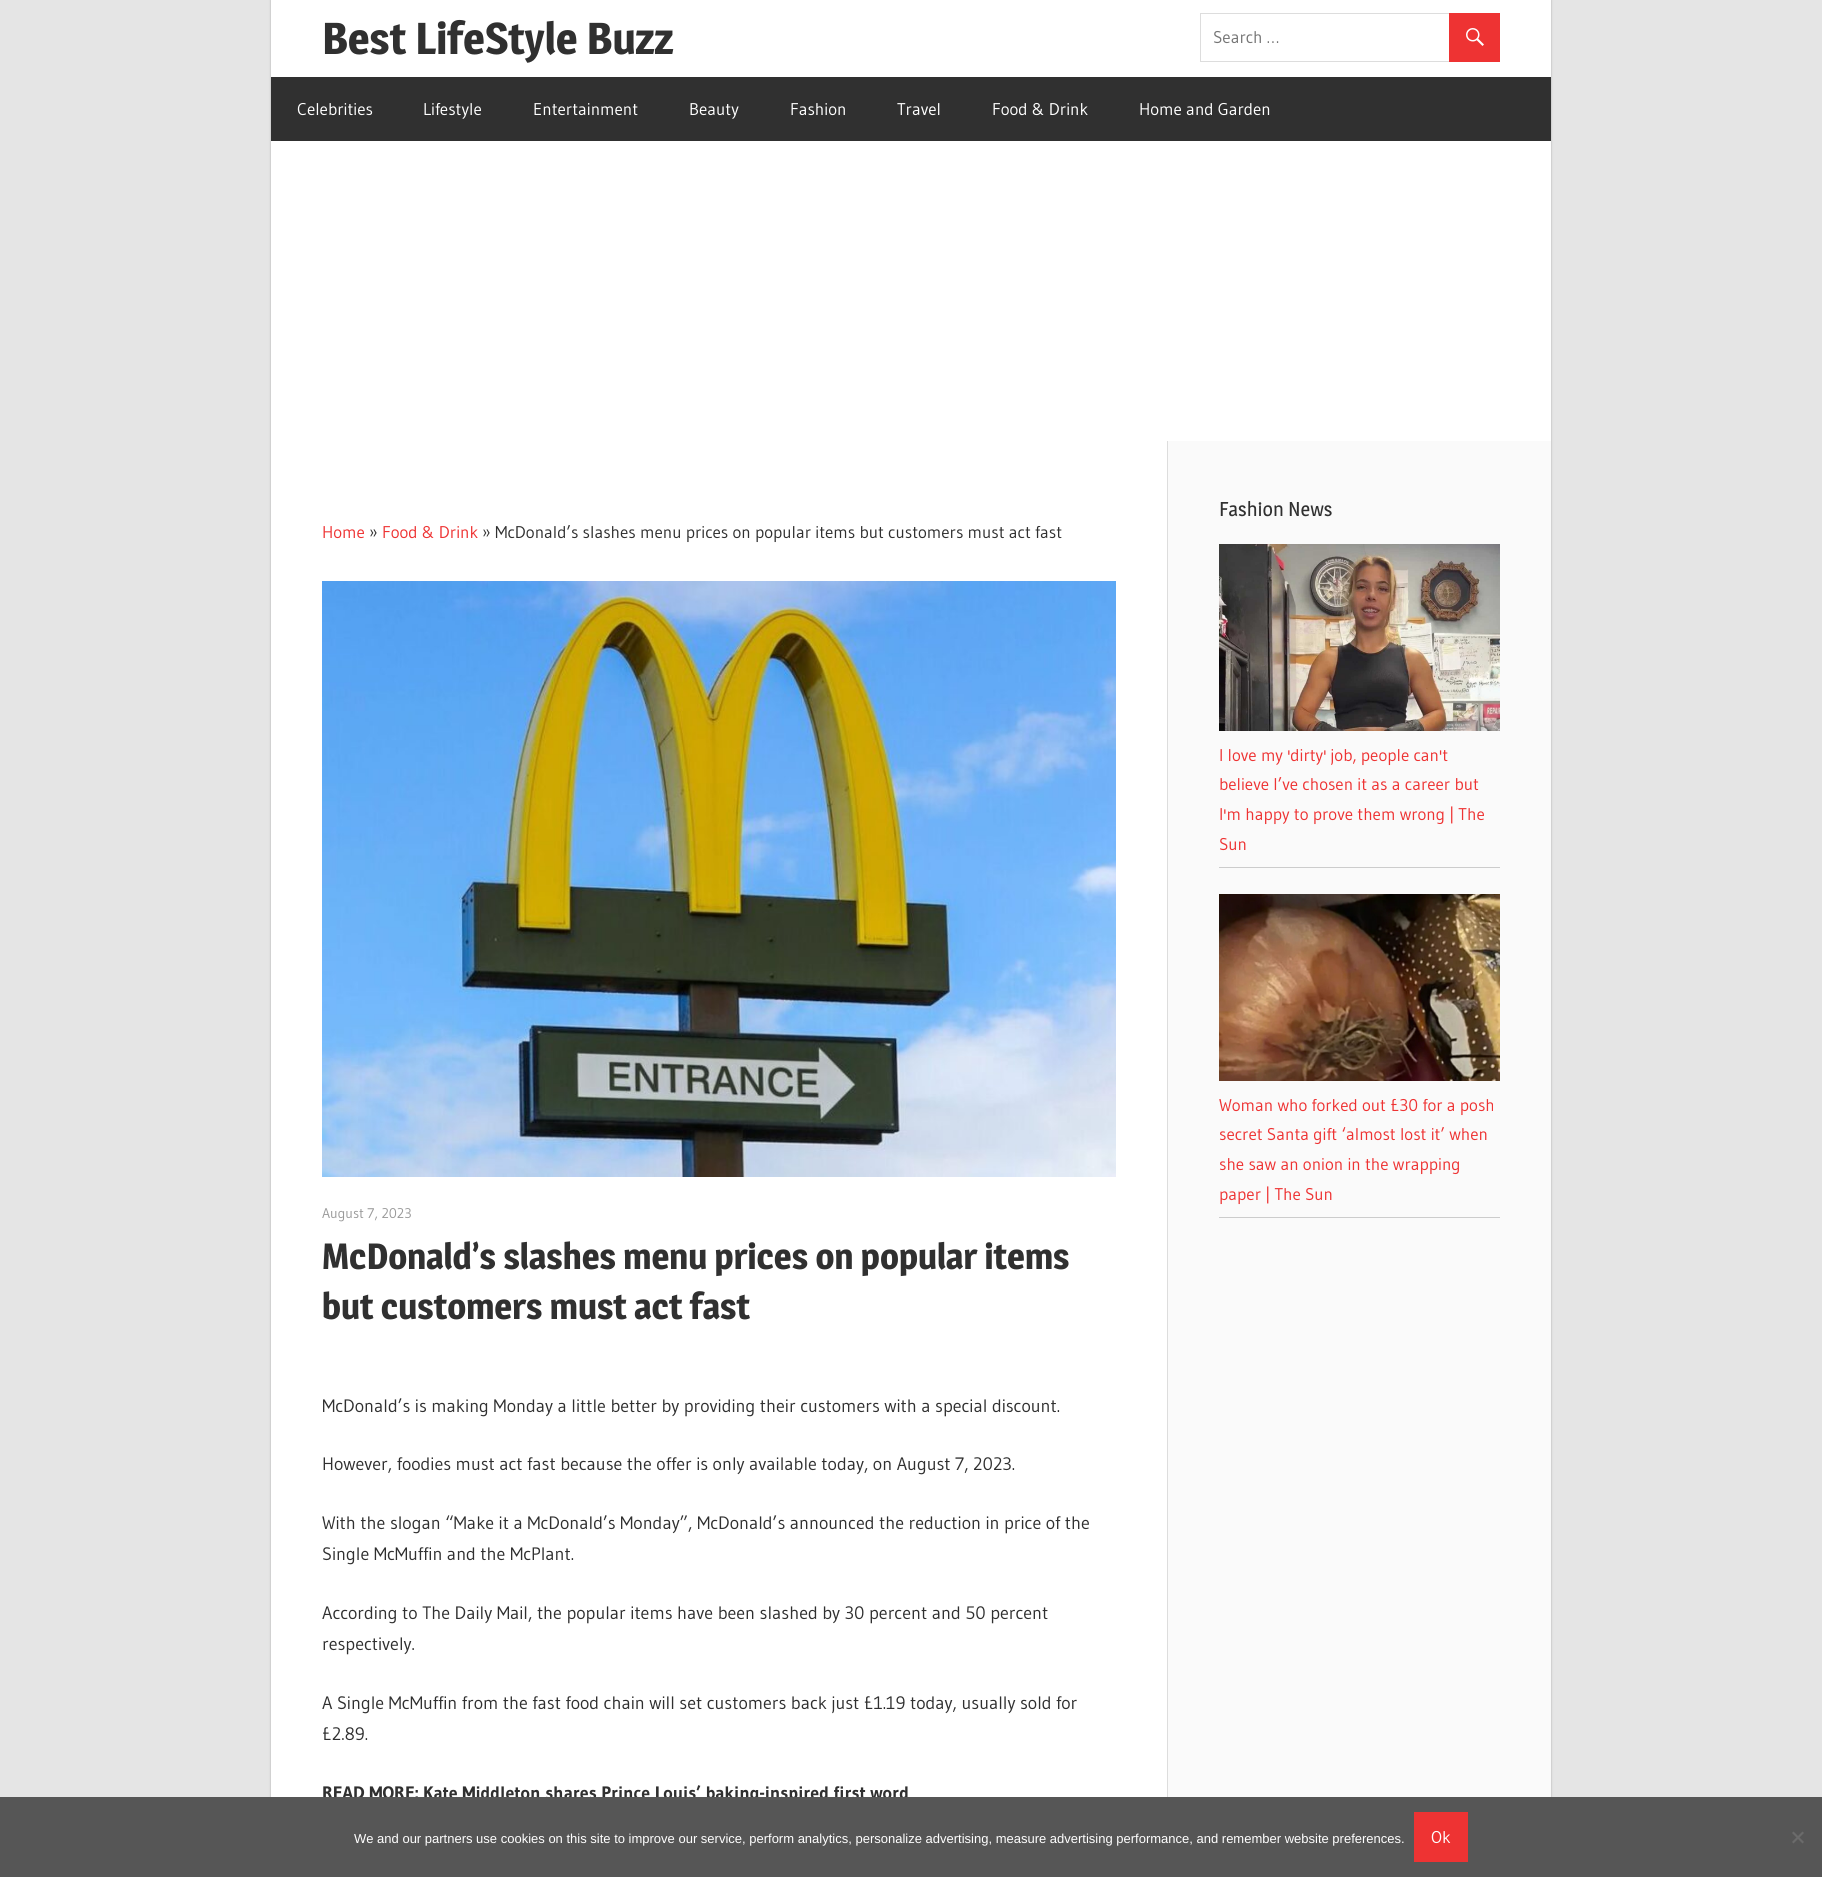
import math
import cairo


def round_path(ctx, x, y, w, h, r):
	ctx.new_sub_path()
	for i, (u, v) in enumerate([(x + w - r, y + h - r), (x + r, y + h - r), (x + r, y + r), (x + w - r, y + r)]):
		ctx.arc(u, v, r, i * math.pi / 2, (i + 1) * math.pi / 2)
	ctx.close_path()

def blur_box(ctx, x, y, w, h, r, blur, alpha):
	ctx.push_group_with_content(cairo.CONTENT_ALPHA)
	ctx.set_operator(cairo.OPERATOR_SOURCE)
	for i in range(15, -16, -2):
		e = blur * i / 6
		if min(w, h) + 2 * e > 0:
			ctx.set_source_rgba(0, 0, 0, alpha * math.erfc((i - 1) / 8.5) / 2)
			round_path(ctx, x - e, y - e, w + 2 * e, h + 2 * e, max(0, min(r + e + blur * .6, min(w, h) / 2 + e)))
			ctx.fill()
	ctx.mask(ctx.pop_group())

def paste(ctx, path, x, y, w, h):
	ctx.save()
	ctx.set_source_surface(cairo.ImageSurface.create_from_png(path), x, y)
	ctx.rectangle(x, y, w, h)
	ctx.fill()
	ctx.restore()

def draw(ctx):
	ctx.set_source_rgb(0.898, 0.898, 0.898)
	ctx.paint()
	ctx.set_source_rgb(0.667, 0.667, 0.667)
	blur_box(ctx, 271, 0, 1280, 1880, 0, 1, 1)
	ctx.set_source_rgb(1, 1, 1)
	ctx.rectangle(271, 0, 1280, 1797)
	ctx.fill()
	ctx.select_font_face('Magra', cairo.FONT_SLANT_NORMAL, cairo.FONT_WEIGHT_BOLD)
	ctx.set_font_size(44)
	ctx.set_source_rgb(0.188, 0.188, 0.188)
	ctx.move_to(322, 54)
	ctx.show_text('Best LifeStyle Buzz')
	ctx.rectangle(1200.5, 13.5, 299, 48)
	ctx.set_source_rgb(0.867, 0.867, 0.867)
	ctx.set_line_width(1)
	ctx.stroke()
	ctx.select_font_face('Gudea')
	ctx.set_font_size(17)
	ctx.set_source_rgb(0.459, 0.459, 0.459)
	ctx.move_to(1213, 43)
	ctx.show_text('Search …')
	ctx.set_source_rgb(0.933, 0.2, 0.2)
	ctx.rectangle(1449, 13, 51, 49)
	ctx.fill()
	paste(ctx, 'media/1.png', 1466, 28, 18, 18)
	ctx.set_source_rgb(0.188, 0.188, 0.188)
	ctx.rectangle(271, 77, 1280, 64)
	ctx.fill()
	ctx.set_source_rgb(1, 1, 1)
	for x, y, s in [
		(297, 115, 'Celebrities'),
		(423, 115, 'Lifestyle'),
		(533, 115, 'Entertainment'),
		(689, 115, 'Beauty'),
		(790, 115, 'Fashion'),
		(897, 115, 'Travel'),
		(992, 115, 'Food & Drink'),
		(1139, 115, 'Home and Garden'),
	]:
		ctx.move_to(x, y)
		ctx.show_text(s)
	ctx.set_source_rgb(0.933, 0.2, 0.2)
	ctx.move_to(322, 538)
	ctx.show_text('Home')
	ctx.set_source_rgb(0.188, 0.188, 0.188)
	ctx.move_to(369, 538)
	ctx.show_text('»')
	ctx.set_source_rgb(0.933, 0.2, 0.2)
	ctx.move_to(382, 538)
	ctx.show_text('Food & Drink')
	ctx.set_source_rgb(0.188, 0.188, 0.188)
	ctx.move_to(482, 538)
	ctx.show_text('» McDonald’s slashes menu prices on popular items but customers must act fast')
	paste(ctx, 'media/2.png', 322, 581, 794, 596)
	ctx.set_font_size(14)
	ctx.set_source_rgb(0.6, 0.6, 0.6)
	ctx.move_to(322, 1218)
	ctx.show_text('August 7, 2023')
	ctx.select_font_face('Magra', cairo.FONT_SLANT_NORMAL, cairo.FONT_WEIGHT_BOLD)
	ctx.set_font_size(36)
	ctx.set_source_rgb(0.188, 0.188, 0.188)
	ctx.move_to(322, 1269)
	ctx.show_text('McDonald’s slashes menu prices on popular items')
	ctx.move_to(322, 1319)
	ctx.show_text('but customers must act fast')
	ctx.select_font_face('Gudea')
	ctx.set_font_size(18)
	for x, y, s in [
		(322, 1412, 'McDonald’s is making Monday a little better by providing their customers with a special discount.'),
		(322, 1470, 'However, foodies must act fast because the offer is only available today, on August 7, 2023.'),
		(322, 1529, 'With the slogan “Make it a McDonald’s Monday”, McDonald’s announced the reduction in price of the'),
		(322, 1560, 'Single McMuffin and the McPlant.'),
		(322, 1619, 'According to The Daily Mail, the popular items have been slashed by 30 percent and 50 percent'),
		(322, 1650, 'respectively.'),
		(322, 1709, 'A Single McMuffin from the fast food chain will set customers back just £1.19 today, usually sold for'),
		(322, 1740, '£2.89.'),
	]:
		ctx.move_to(x, y)
		ctx.show_text(s)
	ctx.select_font_face('Gudea', cairo.FONT_SLANT_NORMAL, cairo.FONT_WEIGHT_BOLD)
	ctx.move_to(322, 1799)
	ctx.show_text('READ MORE: Kate Middleton shares Prince Louis’ baking-inspired first word')
	ctx.set_source_rgb(0.98, 0.98, 0.98)
	ctx.rectangle(1168, 441, 383, 1356)
	ctx.fill()
	ctx.set_source_rgb(0.867, 0.867, 0.867)
	ctx.rectangle(1167, 441, 1, 1356)
	ctx.fill()
	ctx.select_font_face('Magra')
	ctx.set_font_size(20)
	ctx.set_source_rgb(0.188, 0.188, 0.188)
	ctx.move_to(1219, 516)
	ctx.show_text('Fashion News')
	paste(ctx, 'media/3.png', 1219, 544, 281, 187)
	ctx.select_font_face('Gudea')
	ctx.set_font_size(17)
	ctx.set_source_rgb(0.933, 0.2, 0.2)
	for x, y, s in [
		(1219, 761, 'I love my \'dirty\' job, people can\'t'),
		(1219, 790, 'believe I’ve chosen it as a career but'),
		(1219, 820, 'I\'m happy to prove them wrong | The'),
		(1219, 850, 'Sun'),
	]:
		ctx.move_to(x, y)
		ctx.show_text(s)
	ctx.set_source_rgb(0.8, 0.8, 0.8)
	ctx.rectangle(1219, 867, 281, 1)
	ctx.fill()
	paste(ctx, 'media/4.png', 1219, 894, 281, 187)
	ctx.set_source_rgb(0.933, 0.2, 0.2)
	for x, y, s in [
		(1219, 1111, 'Woman who forked out £30 for a posh'),
		(1219, 1140, 'secret Santa gift ‘almost lost it’ when'),
		(1219, 1170, 'she saw an onion in the wrapping'),
		(1219, 1200, 'paper | The Sun'),
	]:
		ctx.move_to(x, y)
		ctx.show_text(s)
	ctx.set_source_rgb(0.8, 0.8, 0.8)
	ctx.rectangle(1219, 1217, 281, 1)
	ctx.fill()
	ctx.set_source_rgb(0.337, 0.337, 0.337)
	ctx.rectangle(0, 1797, 1822, 80)
	ctx.fill()
	ctx.select_font_face('Liberation Sans')
	ctx.set_font_size(13)
	ctx.set_source_rgb(1, 1, 1)
	ctx.move_to(354, 1843)
	ctx.show_text('We and our partners use cookies on this site to improve our service, perform analytics, personalize advertising, measure advertising performance, and remember website preferences.')
	ctx.set_source_rgb(0.933, 0.2, 0.2)
	ctx.rectangle(1414, 1812, 54, 50)
	ctx.fill()
	ctx.select_font_face('Gudea')
	ctx.set_font_size(17)
	ctx.set_source_rgb(1, 1, 1)
	ctx.move_to(1431, 1843)
	ctx.show_text('Ok')
	ctx.set_source_rgb(0.42, 0.42, 0.42)
	ctx.new_path()
	ctx.move_to(1802.5, 1831.5)
	ctx.line_to(1804, 1833)
	ctx.line_to(1793.5, 1843.5)
	ctx.line_to(1792, 1842)
	ctx.close_path()
	ctx.fill()
	ctx.new_path()
	ctx.move_to(1792, 1833)
	ctx.line_to(1793.5, 1831.5)
	ctx.line_to(1804, 1842)
	ctx.line_to(1802.5, 1843.5)
	ctx.close_path()
	ctx.fill()


surface = cairo.ImageSurface(cairo.FORMAT_RGB24, 1822, 1877)
ctx = cairo.Context(surface)
options = cairo.FontOptions()
options.set_hint_metrics(cairo.HINT_METRICS_OFF)
options.set_hint_style(cairo.HINT_STYLE_NONE)
ctx.set_font_options(options)
ctx.set_miter_limit(4)
draw(ctx)
surface.write_to_png('image.png')
